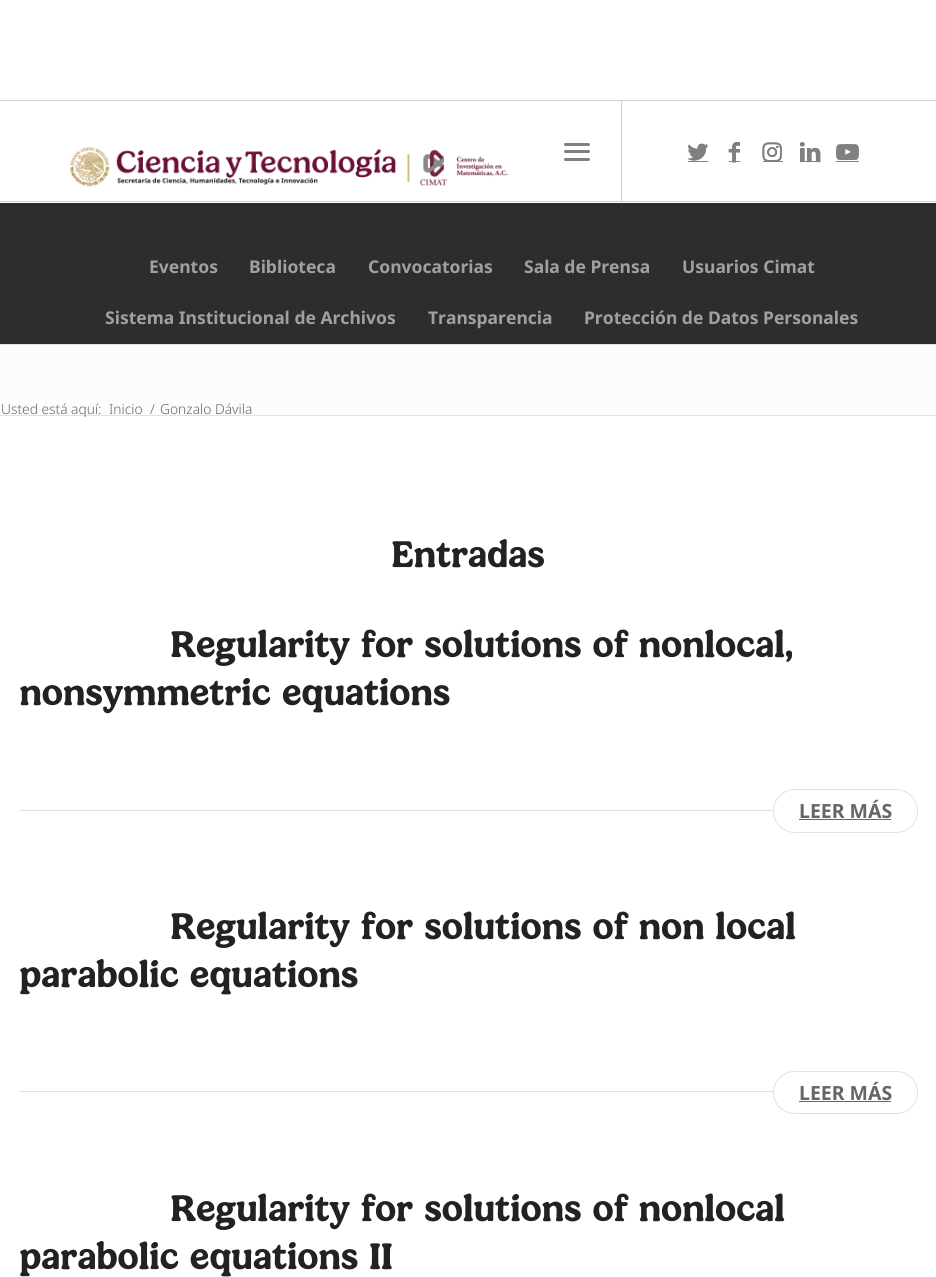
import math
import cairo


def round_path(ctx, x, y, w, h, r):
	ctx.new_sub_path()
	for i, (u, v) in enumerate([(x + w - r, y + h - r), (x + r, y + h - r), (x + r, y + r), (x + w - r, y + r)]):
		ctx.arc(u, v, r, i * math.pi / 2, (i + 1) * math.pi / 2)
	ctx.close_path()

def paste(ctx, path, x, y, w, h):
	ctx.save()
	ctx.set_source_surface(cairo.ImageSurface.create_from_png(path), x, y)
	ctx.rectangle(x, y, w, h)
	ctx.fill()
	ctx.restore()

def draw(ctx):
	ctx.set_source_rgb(1, 1, 1)
	ctx.paint()
	ctx.set_source_rgb(0.812, 0.812, 0.812)
	ctx.rectangle(0, 100, 936, 1)
	ctx.rectangle(0, 201, 936, 1)
	ctx.rectangle(621, 101, 1, 100)
	ctx.fill()
	ctx.set_source_rgb(0.502, 0.502, 0.502)
	round_path(ctx, 564, 150, 26, 3, 1.5)
	ctx.fill()
	round_path(ctx, 564, 143, 26, 3, 1.5)
	ctx.fill()
	round_path(ctx, 564, 158, 26, 3, 1.5)
	ctx.fill()
	paste(ctx, 'media/1.png', 687, 143, 21, 18)
	ctx.rectangle(688, 161, 20, 1)
	ctx.fill()
	ctx.rectangle(729, 161, 11, 1)
	ctx.fill()
	paste(ctx, 'media/2.png', 728, 142, 12, 21)
	paste(ctx, 'media/3.png', 762, 142, 20, 19)
	ctx.rectangle(763, 161, 20, 1)
	ctx.fill()
	ctx.rectangle(800, 161, 20, 1)
	ctx.fill()
	paste(ctx, 'media/4.png', 800, 142, 21, 21)
	paste(ctx, 'media/5.png', 836, 144, 23, 17)
	ctx.rectangle(836, 161, 23, 1)
	ctx.fill()
	paste(ctx, 'media/6.png', 70, 147, 438, 40)
	paste(ctx, 'media/7.png', 687, 143, 21, 18)
	paste(ctx, 'media/8.png', 728, 142, 12, 21)
	paste(ctx, 'media/9.png', 762, 142, 20, 19)
	paste(ctx, 'media/10.png', 800, 142, 21, 21)
	paste(ctx, 'media/11.png', 836, 144, 23, 17)
	ctx.set_source_rgb(0.176, 0.176, 0.176)
	ctx.rectangle(0, 203, 936, 141)
	ctx.fill()
	ctx.select_font_face('Noto Sans', cairo.FONT_SLANT_NORMAL, cairo.FONT_WEIGHT_BOLD)
	ctx.set_font_size(17.5)
	ctx.set_source_rgb(0.627, 0.627, 0.627)
	for x, y, s in [
		(149, 273, 'Eventos'),
		(249, 273, 'Biblioteca'),
		(368, 273, 'Convocatorias'),
		(524, 273, 'Sala de Prensa'),
		(682, 273, 'Usuarios Cimat'),
		(105, 324, 'Sistema Institucional de Archivos'),
		(428, 324, 'Transparencia'),
		(584, 324, 'Protección de Datos Personales'),
	]:
		ctx.move_to(x, y)
		ctx.show_text(s)
	ctx.set_source_rgb(0.988, 0.988, 0.988)
	ctx.rectangle(0, 345, 936, 70)
	ctx.fill()
	ctx.set_source_rgb(0.882, 0.882, 0.882)
	ctx.rectangle(0, 344, 936, 1)
	ctx.rectangle(0, 415, 936, 1)
	ctx.fill()
	ctx.select_font_face('Noto Sans Light')
	ctx.set_font_size(13.75)
	ctx.set_source_rgb(0.4, 0.4, 0.4)
	for x, y, s in [
		(1, 414, 'Usted está aquí:'),
		(109, 414, 'Inicio'),
		(150, 414, '/'),
		(160, 414, 'Gonzalo Dávila'),
	]:
		ctx.move_to(x, y)
		ctx.show_text(s)
	ctx.select_font_face('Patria', cairo.FONT_SLANT_NORMAL, cairo.FONT_WEIGHT_BOLD)
	ctx.set_font_size(37.5)
	ctx.set_source_rgb(0.133, 0.133, 0.133)
	for x, y, s in [
		(391, 567, 'Entradas'),
		(170, 657, 'Regularity for solutions of nonlocal,'),
		(19, 705, 'nonsymmetric equations'),
	]:
		ctx.move_to(x, y)
		ctx.show_text(s)
	ctx.set_source_rgb(0.882, 0.882, 0.882)
	ctx.rectangle(19, 810, 899, 1)
	ctx.fill()
	ctx.set_source_rgb(1, 1, 1)
	round_path(ctx, 773.5, 789.5, 144, 43, 21.5)
	ctx.fill_preserve()
	ctx.set_source_rgb(0.882, 0.882, 0.882)
	ctx.set_line_width(1)
	ctx.stroke()
	ctx.select_font_face('Noto Sans', cairo.FONT_SLANT_NORMAL, cairo.FONT_WEIGHT_BOLD)
	ctx.set_font_size(19.5)
	ctx.set_source_rgb(0.4, 0.4, 0.4)
	ctx.move_to(799, 818)
	ctx.show_text('LEER MÁS')
	ctx.rectangle(799, 819, 92, 1)
	ctx.fill()
	ctx.select_font_face('Patria', cairo.FONT_SLANT_NORMAL, cairo.FONT_WEIGHT_BOLD)
	ctx.set_font_size(37.5)
	ctx.set_source_rgb(0.133, 0.133, 0.133)
	ctx.move_to(170, 939)
	ctx.show_text('Regularity for solutions of non local')
	ctx.move_to(19, 987)
	ctx.show_text('parabolic equations')
	ctx.set_source_rgb(0.882, 0.882, 0.882)
	ctx.rectangle(19, 1091, 899, 1)
	ctx.fill()
	ctx.set_source_rgb(1, 1, 1)
	round_path(ctx, 773.5, 1071.5, 144, 42, 21)
	ctx.fill_preserve()
	ctx.set_source_rgb(0.882, 0.882, 0.882)
	ctx.stroke()
	ctx.select_font_face('Noto Sans', cairo.FONT_SLANT_NORMAL, cairo.FONT_WEIGHT_BOLD)
	ctx.set_font_size(19.5)
	ctx.set_source_rgb(0.4, 0.4, 0.4)
	ctx.move_to(799, 1100)
	ctx.show_text('LEER MÁS')
	ctx.rectangle(799, 1101, 92, 1)
	ctx.fill()
	ctx.select_font_face('Patria', cairo.FONT_SLANT_NORMAL, cairo.FONT_WEIGHT_BOLD)
	ctx.set_font_size(37.5)
	ctx.set_source_rgb(0.133, 0.133, 0.133)
	ctx.move_to(170, 1221)
	ctx.show_text('Regularity for solutions of nonlocal')
	ctx.move_to(19, 1269)
	ctx.show_text('parabolic equations II')


surface = cairo.ImageSurface(cairo.FORMAT_RGB24, 936, 1277)
ctx = cairo.Context(surface)
options = cairo.FontOptions()
options.set_hint_metrics(cairo.HINT_METRICS_OFF)
options.set_hint_style(cairo.HINT_STYLE_NONE)
ctx.set_font_options(options)
ctx.set_miter_limit(4)
draw(ctx)
surface.write_to_png('image.png')
